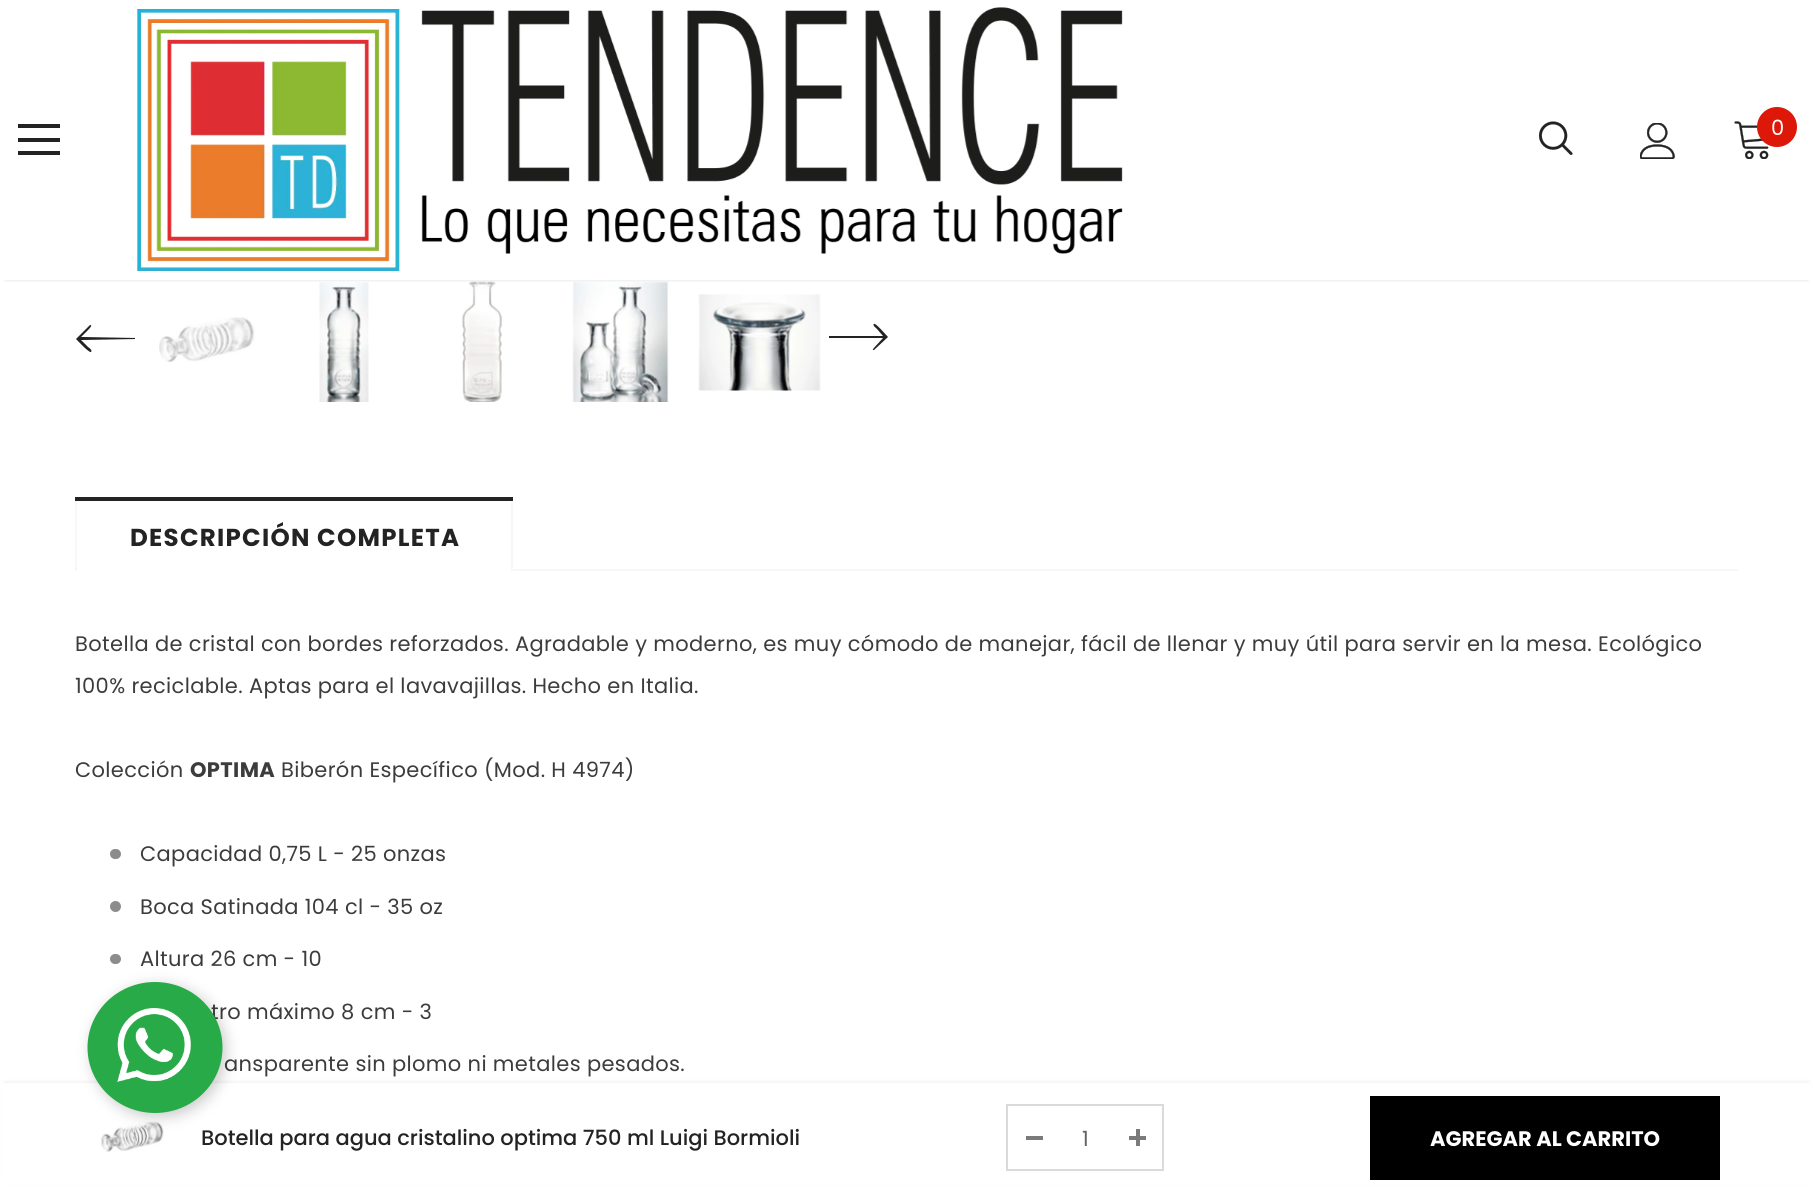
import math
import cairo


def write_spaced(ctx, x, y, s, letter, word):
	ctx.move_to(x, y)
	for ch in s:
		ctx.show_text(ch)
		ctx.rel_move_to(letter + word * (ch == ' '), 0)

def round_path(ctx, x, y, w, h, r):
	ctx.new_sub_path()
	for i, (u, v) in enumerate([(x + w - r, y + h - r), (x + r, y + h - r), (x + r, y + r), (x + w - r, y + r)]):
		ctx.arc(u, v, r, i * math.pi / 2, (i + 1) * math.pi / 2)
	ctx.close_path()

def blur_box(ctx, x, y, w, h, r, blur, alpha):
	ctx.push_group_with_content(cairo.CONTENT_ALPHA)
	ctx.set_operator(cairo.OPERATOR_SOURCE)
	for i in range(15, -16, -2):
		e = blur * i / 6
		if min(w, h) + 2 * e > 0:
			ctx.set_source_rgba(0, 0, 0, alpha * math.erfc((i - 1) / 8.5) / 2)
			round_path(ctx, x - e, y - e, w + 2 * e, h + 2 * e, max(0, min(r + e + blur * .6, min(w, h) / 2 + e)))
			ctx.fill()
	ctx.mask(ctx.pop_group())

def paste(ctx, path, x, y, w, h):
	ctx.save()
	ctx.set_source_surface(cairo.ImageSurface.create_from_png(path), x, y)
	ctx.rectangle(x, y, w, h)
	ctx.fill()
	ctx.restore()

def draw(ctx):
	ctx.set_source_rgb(1, 1, 1)
	ctx.paint()
	paste(ctx, 'media/6.png', 319, 282, 50, 120)
	paste(ctx, 'media/7.png', 462, 281, 40, 121)
	paste(ctx, 'media/8.png', 572, 281, 97, 121)
	ctx.save()
	ctx.rectangle(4, 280, 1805, 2)
	ctx.clip()
	ctx.set_source_rgb(0, 0, 0)
	blur_box(ctx, 5, 11, 1803, 269, 0, 2.5, 0.12)
	ctx.restore()
	ctx.set_source_rgb(0.137, 0.137, 0.137)
	ctx.rectangle(18, 124, 42, 4)
	ctx.rectangle(18, 138, 42, 4)
	ctx.rectangle(18, 151, 42, 4)
	ctx.fill()
	paste(ctx, 'media/1.png', 137, 7, 986, 264)
	paste(ctx, 'media/2.png', 1538, 121, 35, 34)
	paste(ctx, 'media/3.png', 1640, 123, 35, 36)
	paste(ctx, 'media/4.png', 1734, 121, 35, 38)
	ctx.set_source_rgb(0.867, 0.094, 0.039)
	ctx.arc(1777, 127, 20, 0, 2 * math.pi)
	ctx.fill()
	ctx.select_font_face('Poppins')
	ctx.set_font_size(21)
	ctx.set_source_rgb(1, 1, 1)
	ctx.move_to(1771, 135)
	ctx.show_text('0')
	ctx.set_source_rgb(0.137, 0.137, 0.137)
	ctx.new_path()
	ctx.move_to(90, 325)
	ctx.line_to(76, 339)
	ctx.curve_to(78, 341, 89, 353, 91, 352)
	ctx.curve_to(93, 350, 88, 347, 88, 347)
	ctx.line_to(81, 340)
	ctx.line_to(135, 339)
	ctx.curve_to(135, 339, 135, 338, 135, 338)
	ctx.line_to(81, 337)
	ctx.curve_to(87, 331, 94, 325, 90, 325)
	ctx.close_path()
	ctx.fill()
	paste(ctx, 'media/5.png', 159, 317, 96, 45)
	paste(ctx, 'media/9.png', 698, 294, 123, 97)
	ctx.new_path()
	ctx.move_to(874, 350)
	ctx.line_to(888, 337)
	ctx.curve_to(886, 335, 875, 322, 874, 324)
	ctx.curve_to(872, 325, 876, 328, 877, 329)
	ctx.line_to(883, 336)
	ctx.line_to(829, 336)
	ctx.curve_to(829, 337, 829, 337, 829, 338)
	ctx.line_to(883, 338)
	ctx.curve_to(877, 345, 870, 351, 874, 350)
	ctx.close_path()
	ctx.fill()
	ctx.set_source_rgb(0.965, 0.965, 0.965)
	ctx.rectangle(513, 569, 1225, 2)
	ctx.rectangle(511, 497, 2, 74)
	ctx.rectangle(75, 497, 2, 74)
	ctx.fill()
	ctx.set_source_rgb(0.137, 0.137, 0.137)
	ctx.rectangle(75, 497, 438, 4)
	ctx.fill()
	ctx.select_font_face('Poppins', cairo.FONT_SLANT_NORMAL, cairo.FONT_WEIGHT_BOLD)
	ctx.set_font_size(24.5)
	write_spaced(ctx, 130, 546, 'DESCRIPCIÓN COMPLETA', 1.25, 0)
	ctx.select_font_face('Poppins')
	ctx.set_font_size(21)
	ctx.set_source_rgb(0.235, 0.235, 0.235)
	for x, y, s in [
		(75, 651, 'Botella de cristal con bordes reforzados. Agradable y moderno, es muy cómodo de manejar, fácil de llenar y muy útil para servir en la mesa. Ecológico'),
		(75, 693, '100% reciclable. Aptas para el lavavajillas. Hecho en Italia.'),
		(75, 777, 'Colección'),
	]:
		write_spaced(ctx, x, y, s, 0.35, 0)
	ctx.select_font_face('Poppins', cairo.FONT_SLANT_NORMAL, cairo.FONT_WEIGHT_BOLD)
	write_spaced(ctx, 190, 777, 'OPTIMA', 0.35, 0)
	ctx.select_font_face('Poppins')
	write_spaced(ctx, 281, 777, 'Biberón Específico (Mod. H 4974)', 0.35, 0)
	ctx.set_source_rgb(0.549, 0.549, 0.549)
	round_path(ctx, 110, 849, 11, 10, 5)
	ctx.fill()
	ctx.set_source_rgb(0.235, 0.235, 0.235)
	write_spaced(ctx, 140, 861, 'Capacidad 0,75 L - 25 onzas', 0.35, 0)
	ctx.set_source_rgb(0.549, 0.549, 0.549)
	ctx.new_path()
	ctx.arc(115.5, 906.5, 5.5, 0, 2 * math.pi)
	ctx.fill()
	ctx.set_source_rgb(0.235, 0.235, 0.235)
	write_spaced(ctx, 140, 914, 'Boca Satinada 104 cl - 35 oz', 0.35, 0)
	ctx.set_source_rgb(0.549, 0.549, 0.549)
	round_path(ctx, 110, 954, 11, 10, 5)
	ctx.fill()
	ctx.set_source_rgb(0.235, 0.235, 0.235)
	for x, y, s in [
		(140, 966, 'Altura 26 cm - 10'),
		(211, 1019, 'tro máximo 8 cm - 3'),
		(224, 1071, 'ansparente sin plomo ni metales pesados.'),
	]:
		write_spaced(ctx, x, y, s, 0.35, 0)
	ctx.set_source_rgb(0, 0, 0)
	blur_box(ctx, 5, 1083, 1803, 98, 0, 2.5, 0.1)
	ctx.set_source_rgb(1, 1, 1)
	ctx.rectangle(2, 1083, 1809, 101)
	ctx.fill()
	paste(ctx, 'media/10.png', 101, 1121, 63, 31)
	ctx.select_font_face('Poppins Medium')
	ctx.set_source_rgb(0.137, 0.137, 0.137)
	ctx.move_to(201, 1145)
	ctx.show_text('Botella para agua cristalino optima 750 ml Luigi Bormioli')
	ctx.rectangle(1007, 1105, 156, 65)
	ctx.set_source_rgb(0.855, 0.855, 0.855)
	ctx.stroke()
	ctx.set_source_rgb(0.482, 0.482, 0.482)
	ctx.rectangle(1026, 1136, 17, 4)
	ctx.fill()
	ctx.select_font_face('Poppins')
	ctx.set_source_rgb(0.392, 0.392, 0.392)
	ctx.move_to(1082, 1146)
	ctx.show_text('1')
	ctx.set_source_rgb(0.482, 0.482, 0.482)
	ctx.rectangle(1129, 1136, 17, 4)
	ctx.rectangle(1136, 1129, 4, 17)
	ctx.fill()
	ctx.set_source_rgb(0, 0, 0)
	ctx.rectangle(1370, 1096, 350, 84)
	ctx.fill()
	ctx.select_font_face('Poppins', cairo.FONT_SLANT_NORMAL, cairo.FONT_WEIGHT_BOLD)
	ctx.set_source_rgb(1, 1, 1)
	ctx.move_to(1430, 1146)
	ctx.show_text('AGREGAR AL CARRITO')
	ctx.set_source_rgb(0, 0, 0)
	blur_box(ctx, 91, 985, 135, 132, 66, 7, 0.2)
	ctx.set_source_rgb(0.157, 0.667, 0.282)
	ctx.new_path()
	ctx.move_to(155, 982)
	ctx.curve_to(192.5, 982, 222.5, 1011.5, 222.5, 1047.5)
	ctx.curve_to(222.5, 1083.5, 192.5, 1113, 155, 1113)
	ctx.curve_to(117.5, 1113, 87.5, 1083.5, 87.5, 1047.5)
	ctx.curve_to(87.5, 1011.5, 117.5, 982, 155, 982)
	ctx.close_path()
	ctx.fill()
	paste(ctx, 'media/11.png', 117, 1008, 74, 74)


surface = cairo.ImageSurface(cairo.FORMAT_RGB24, 1813, 1191)
ctx = cairo.Context(surface)
options = cairo.FontOptions()
options.set_hint_metrics(cairo.HINT_METRICS_OFF)
options.set_hint_style(cairo.HINT_STYLE_NONE)
ctx.set_font_options(options)
ctx.set_miter_limit(4)
draw(ctx)
surface.write_to_png('image.png')
